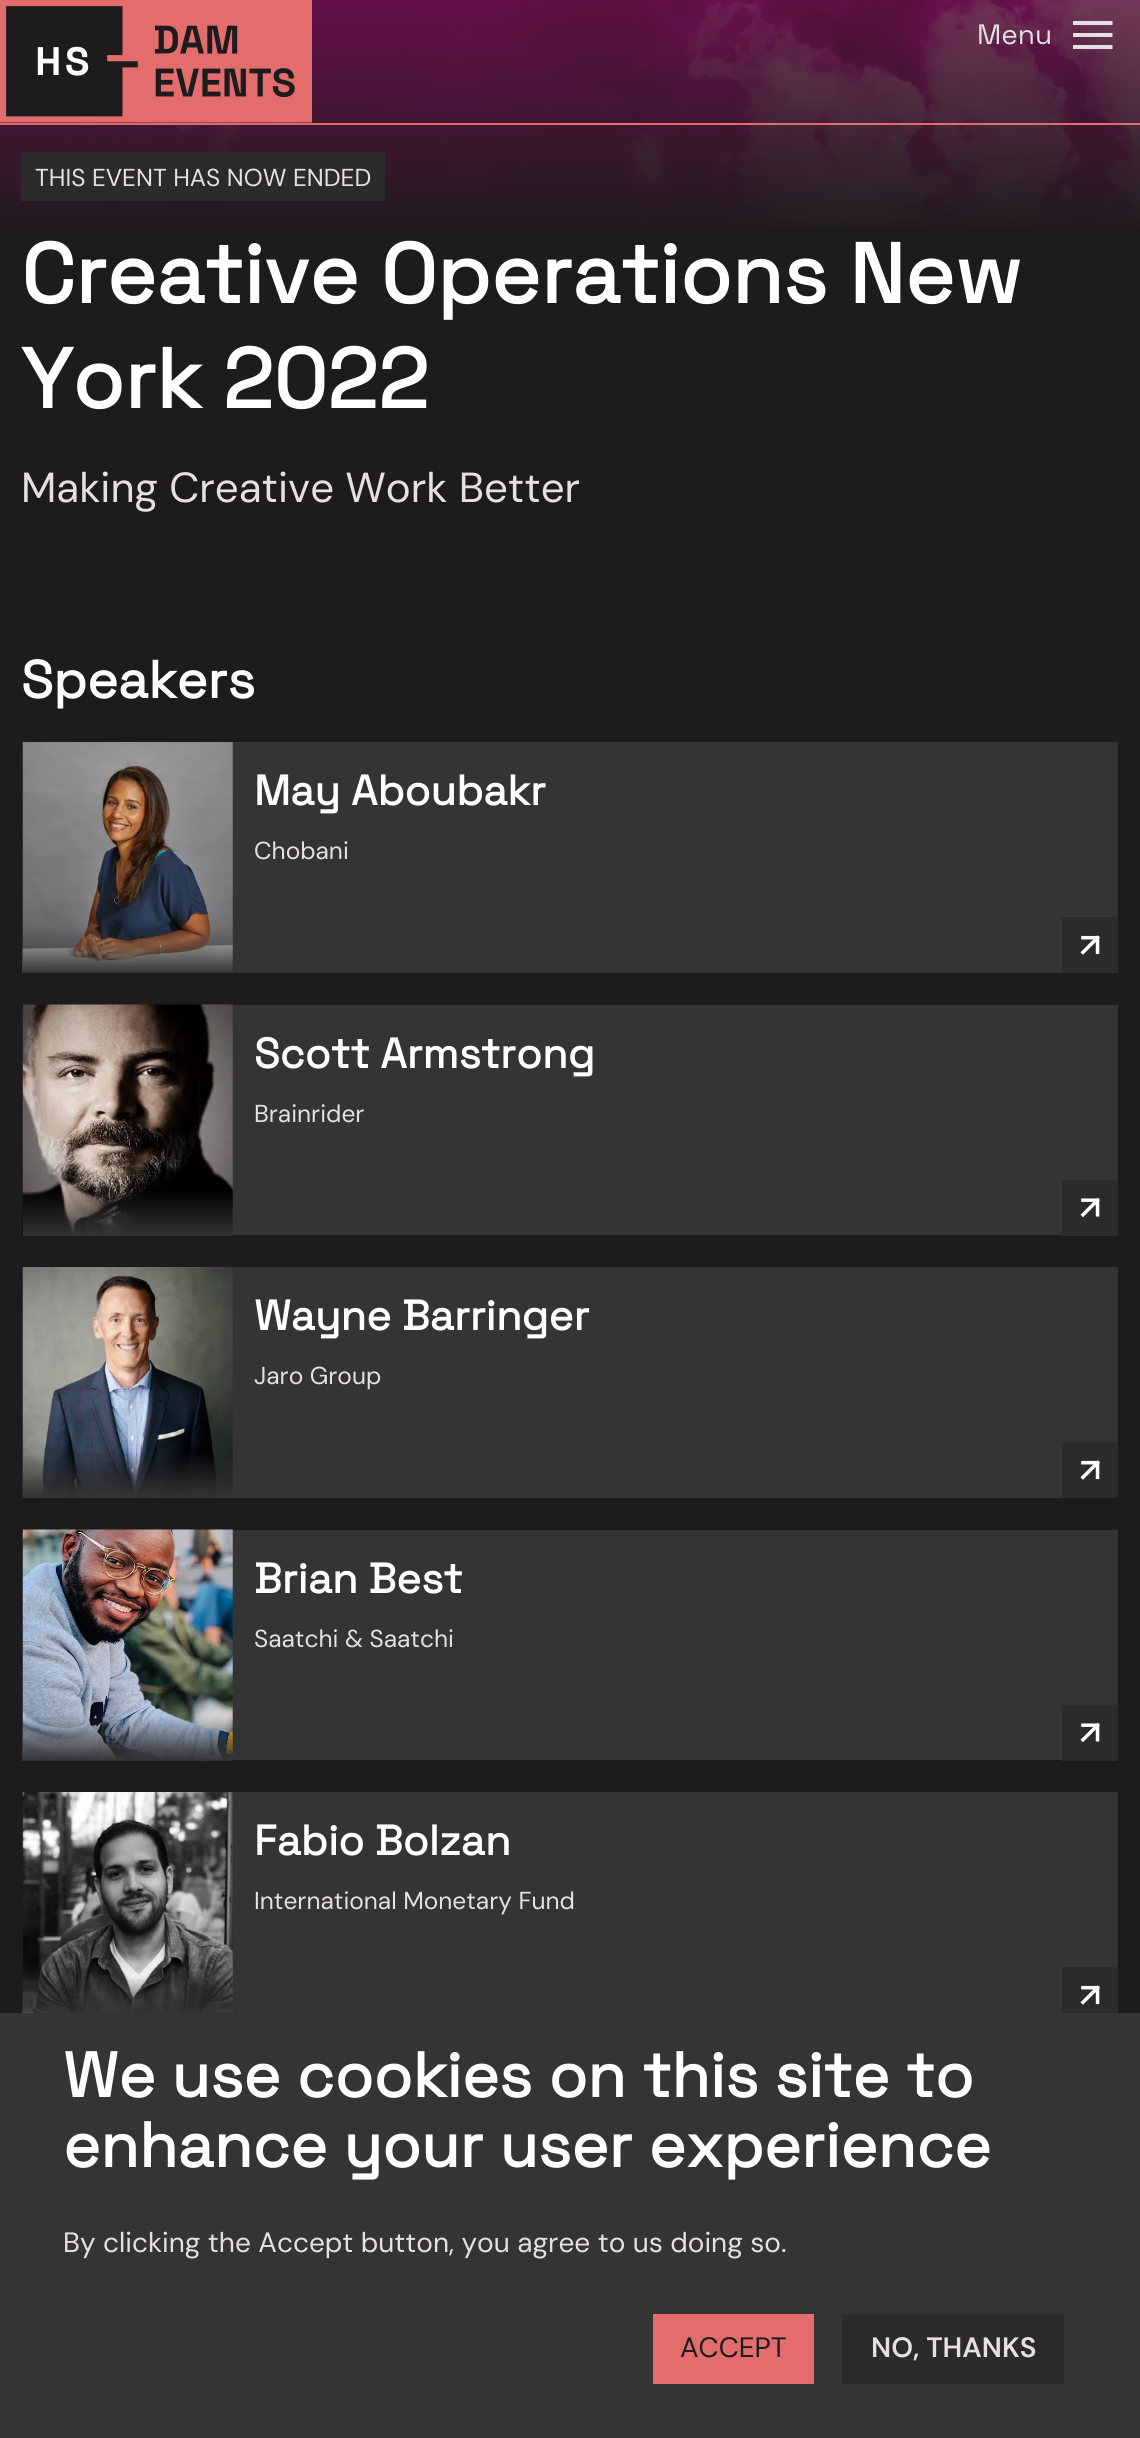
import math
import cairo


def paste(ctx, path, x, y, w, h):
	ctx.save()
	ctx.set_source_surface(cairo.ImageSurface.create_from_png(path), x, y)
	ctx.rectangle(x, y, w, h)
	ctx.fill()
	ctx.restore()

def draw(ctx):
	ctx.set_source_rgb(0.114, 0.106, 0.114)
	ctx.paint()
	paste(ctx, 'media/1.png', 0, 0, 1140, 227)
	ctx.set_source_rgb(0.89, 0.424, 0.424)
	ctx.rectangle(0, 123, 1140, 2)
	ctx.fill()
	paste(ctx, 'media/2.png', 0, 0, 312, 123)
	ctx.select_font_face('Space Grotesk Light')
	ctx.set_font_size(28)
	ctx.set_source_rgb(0.902, 0.878, 0.902)
	ctx.move_to(977, 44)
	ctx.show_text('Menu')
	ctx.save()
	ctx.rectangle(1073, 21, 40, 28)
	ctx.clip()
	ctx.new_path()
	ctx.move_to(1074.5, 35)
	ctx.line_to(1110.5, 35)
	ctx.move_to(1074.5, 23)
	ctx.line_to(1110.5, 23)
	ctx.move_to(1074.5, 47)
	ctx.line_to(1110.5, 47)
	ctx.set_line_width(4)
	ctx.set_line_cap(cairo.LINE_CAP_SQUARE)
	ctx.set_line_join(cairo.LINE_JOIN_ROUND)
	ctx.stroke()
	ctx.restore()
	ctx.set_source_rgb(0.173, 0.169, 0.173)
	ctx.rectangle(21, 152, 364, 49)
	ctx.fill()
	ctx.select_font_face('DM Sans')
	ctx.set_font_size(24.5)
	ctx.set_source_rgb(0.902, 0.878, 0.902)
	ctx.move_to(35, 186)
	ctx.show_text('THIS EVENT HAS NOW ENDED')
	ctx.select_font_face('Space Grotesk', cairo.FONT_SLANT_NORMAL, cairo.FONT_WEIGHT_BOLD)
	ctx.set_font_size(84)
	ctx.set_source_rgb(1, 1, 1)
	ctx.move_to(21, 303)
	ctx.show_text('Creative Operations New')
	ctx.move_to(21, 408)
	ctx.show_text('York 2022')
	ctx.select_font_face('DM Sans')
	ctx.set_font_size(42)
	ctx.set_source_rgb(0.902, 0.878, 0.902)
	ctx.move_to(21, 502)
	ctx.show_text('Making Creative Work Better')
	ctx.select_font_face('Space Grotesk', cairo.FONT_SLANT_NORMAL, cairo.FONT_WEIGHT_BOLD)
	ctx.set_font_size(52.5)
	ctx.set_source_rgb(1, 1, 1)
	ctx.move_to(21, 698)
	ctx.show_text('Speakers')
	ctx.set_source_rgb(0.208, 0.204, 0.208)
	ctx.rectangle(232, 742, 886, 231)
	ctx.fill()
	paste(ctx, 'media/3.png', 22, 742, 211, 231)
	gradient = cairo.LinearGradient(128, 973, 128, 742)
	gradient.add_color_stop_rgba(0, 0.208, 0.204, 0.208, 1)
	gradient.add_color_stop_rgba(0.2, 0.208, 0.204, 0.208, 0)
	ctx.set_source(gradient)
	ctx.rectangle(23, 928, 210, 45)
	ctx.fill()
	ctx.set_font_size(42)
	ctx.set_source_rgb(1, 1, 1)
	ctx.move_to(254, 805)
	ctx.show_text('May Aboubakr')
	ctx.select_font_face('DM Sans')
	ctx.set_font_size(24.5)
	ctx.set_source_rgb(0.902, 0.878, 0.902)
	ctx.move_to(254, 859)
	ctx.show_text('Chobani')
	ctx.set_source_rgb(0.173, 0.169, 0.173)
	ctx.rectangle(1062, 917, 56, 56)
	ctx.fill()
	paste(ctx, 'media/4.png', 1080, 935, 20, 20)
	ctx.set_source_rgb(0.208, 0.204, 0.208)
	ctx.rectangle(232, 1005, 886, 230)
	ctx.fill()
	paste(ctx, 'media/5.png', 22, 1004, 211, 232)
	gradient = cairo.LinearGradient(128, 1236, 128, 1005)
	gradient.add_color_stop_rgba(0, 0.208, 0.204, 0.208, 1)
	gradient.add_color_stop_rgba(0.2, 0.208, 0.204, 0.208, 0)
	ctx.set_source(gradient)
	ctx.rectangle(23, 1191, 210, 45)
	ctx.fill()
	ctx.select_font_face('Space Grotesk', cairo.FONT_SLANT_NORMAL, cairo.FONT_WEIGHT_BOLD)
	ctx.set_font_size(42)
	ctx.set_source_rgb(1, 1, 1)
	ctx.move_to(254, 1068)
	ctx.show_text('Scott Armstrong')
	ctx.select_font_face('DM Sans')
	ctx.set_font_size(24.5)
	ctx.set_source_rgb(0.902, 0.878, 0.902)
	ctx.move_to(254, 1122)
	ctx.show_text('Brainrider')
	ctx.set_source_rgb(0.173, 0.169, 0.173)
	ctx.rectangle(1062, 1180, 56, 56)
	ctx.fill()
	paste(ctx, 'media/6.png', 1080, 1197, 20, 21)
	ctx.set_source_rgb(0.208, 0.204, 0.208)
	ctx.rectangle(232, 1267, 886, 231)
	ctx.fill()
	paste(ctx, 'media/7.png', 22, 1267, 211, 231)
	gradient = cairo.LinearGradient(128, 1498, 128, 1267)
	gradient.add_color_stop_rgba(0, 0.208, 0.204, 0.208, 1)
	gradient.add_color_stop_rgba(0.2, 0.208, 0.204, 0.208, 0)
	ctx.set_source(gradient)
	ctx.rectangle(23, 1453, 210, 45)
	ctx.fill()
	ctx.select_font_face('Space Grotesk', cairo.FONT_SLANT_NORMAL, cairo.FONT_WEIGHT_BOLD)
	ctx.set_font_size(42)
	ctx.set_source_rgb(1, 1, 1)
	ctx.move_to(254, 1330)
	ctx.show_text('Wayne Barringer')
	ctx.select_font_face('DM Sans')
	ctx.set_font_size(24.5)
	ctx.set_source_rgb(0.902, 0.878, 0.902)
	ctx.move_to(254, 1384)
	ctx.show_text('Jaro Group')
	ctx.set_source_rgb(0.173, 0.169, 0.173)
	ctx.rectangle(1062, 1442, 56, 56)
	ctx.fill()
	paste(ctx, 'media/4.png', 1080, 1460, 20, 20)
	ctx.set_source_rgb(0.208, 0.204, 0.208)
	ctx.rectangle(232, 1530, 886, 230)
	ctx.fill()
	paste(ctx, 'media/8.png', 22, 1529, 211, 232)
	gradient = cairo.LinearGradient(128, 1761, 128, 1530)
	gradient.add_color_stop_rgba(0, 0.208, 0.204, 0.208, 1)
	gradient.add_color_stop_rgba(0.2, 0.208, 0.204, 0.208, 0)
	ctx.set_source(gradient)
	ctx.rectangle(23, 1716, 210, 45)
	ctx.fill()
	ctx.select_font_face('Space Grotesk', cairo.FONT_SLANT_NORMAL, cairo.FONT_WEIGHT_BOLD)
	ctx.set_font_size(42)
	ctx.set_source_rgb(1, 1, 1)
	ctx.move_to(254, 1593)
	ctx.show_text('Brian Best')
	ctx.select_font_face('DM Sans')
	ctx.set_font_size(24.5)
	ctx.set_source_rgb(0.902, 0.878, 0.902)
	ctx.move_to(254, 1647)
	ctx.show_text('Saatchi & Saatchi')
	ctx.set_source_rgb(0.173, 0.169, 0.173)
	ctx.rectangle(1062, 1705, 56, 56)
	ctx.fill()
	paste(ctx, 'media/6.png', 1080, 1722, 20, 21)
	ctx.set_source_rgb(0.208, 0.204, 0.208)
	ctx.rectangle(232, 1792, 886, 221)
	ctx.fill()
	paste(ctx, 'media/9.png', 22, 1792, 211, 221)
	gradient = cairo.LinearGradient(128, 2023, 128, 1792)
	gradient.add_color_stop_rgba(0, 0.208, 0.204, 0.208, 1)
	gradient.add_color_stop_rgba(0.2, 0.208, 0.204, 0.208, 0)
	ctx.set_source(gradient)
	ctx.rectangle(23, 1978, 210, 35)
	ctx.fill()
	ctx.select_font_face('Space Grotesk', cairo.FONT_SLANT_NORMAL, cairo.FONT_WEIGHT_BOLD)
	ctx.set_font_size(42)
	ctx.set_source_rgb(1, 1, 1)
	ctx.move_to(254, 1855)
	ctx.show_text('Fabio Bolzan')
	ctx.select_font_face('DM Sans')
	ctx.set_font_size(24.5)
	ctx.set_source_rgb(0.902, 0.878, 0.902)
	ctx.move_to(254, 1909)
	ctx.show_text('International Monetary Fund')
	ctx.set_source_rgb(0.173, 0.169, 0.173)
	ctx.rectangle(1062, 1967, 56, 46)
	ctx.fill()
	paste(ctx, 'media/4.png', 1080, 1985, 20, 20)
	ctx.set_source_rgb(0.208, 0.204, 0.208)
	ctx.rectangle(0, 2013, 1140, 425)
	ctx.fill()
	ctx.select_font_face('Space Grotesk', cairo.FONT_SLANT_NORMAL, cairo.FONT_WEIGHT_BOLD)
	ctx.set_font_size(63)
	ctx.set_source_rgb(1, 1, 1)
	ctx.move_to(63, 2097)
	ctx.show_text('We use cookies on this site to')
	ctx.move_to(63, 2167)
	ctx.show_text('enhance your user experience')
	ctx.select_font_face('DM Sans')
	ctx.set_font_size(28)
	ctx.set_source_rgb(0.902, 0.878, 0.902)
	ctx.move_to(63, 2252)
	ctx.show_text('By clicking the Accept button, you agree to us doing so.')
	ctx.set_source_rgb(0.89, 0.424, 0.424)
	ctx.rectangle(653, 2314, 161, 70)
	ctx.fill()
	ctx.set_source_rgb(0.114, 0.106, 0.114)
	ctx.move_to(680, 2357)
	ctx.show_text('ACCEPT')
	ctx.set_source_rgb(0.173, 0.169, 0.173)
	ctx.rectangle(842, 2314, 222, 70)
	ctx.fill()
	ctx.select_font_face('DM Sans SemiBold')
	ctx.set_source_rgb(0.902, 0.878, 0.902)
	ctx.move_to(871, 2357)
	ctx.show_text('NO, THANKS')


surface = cairo.ImageSurface(cairo.FORMAT_RGB24, 1140, 2438)
ctx = cairo.Context(surface)
options = cairo.FontOptions()
options.set_hint_metrics(cairo.HINT_METRICS_OFF)
options.set_hint_style(cairo.HINT_STYLE_NONE)
ctx.set_font_options(options)
ctx.set_miter_limit(4)
draw(ctx)
surface.write_to_png('image.png')
